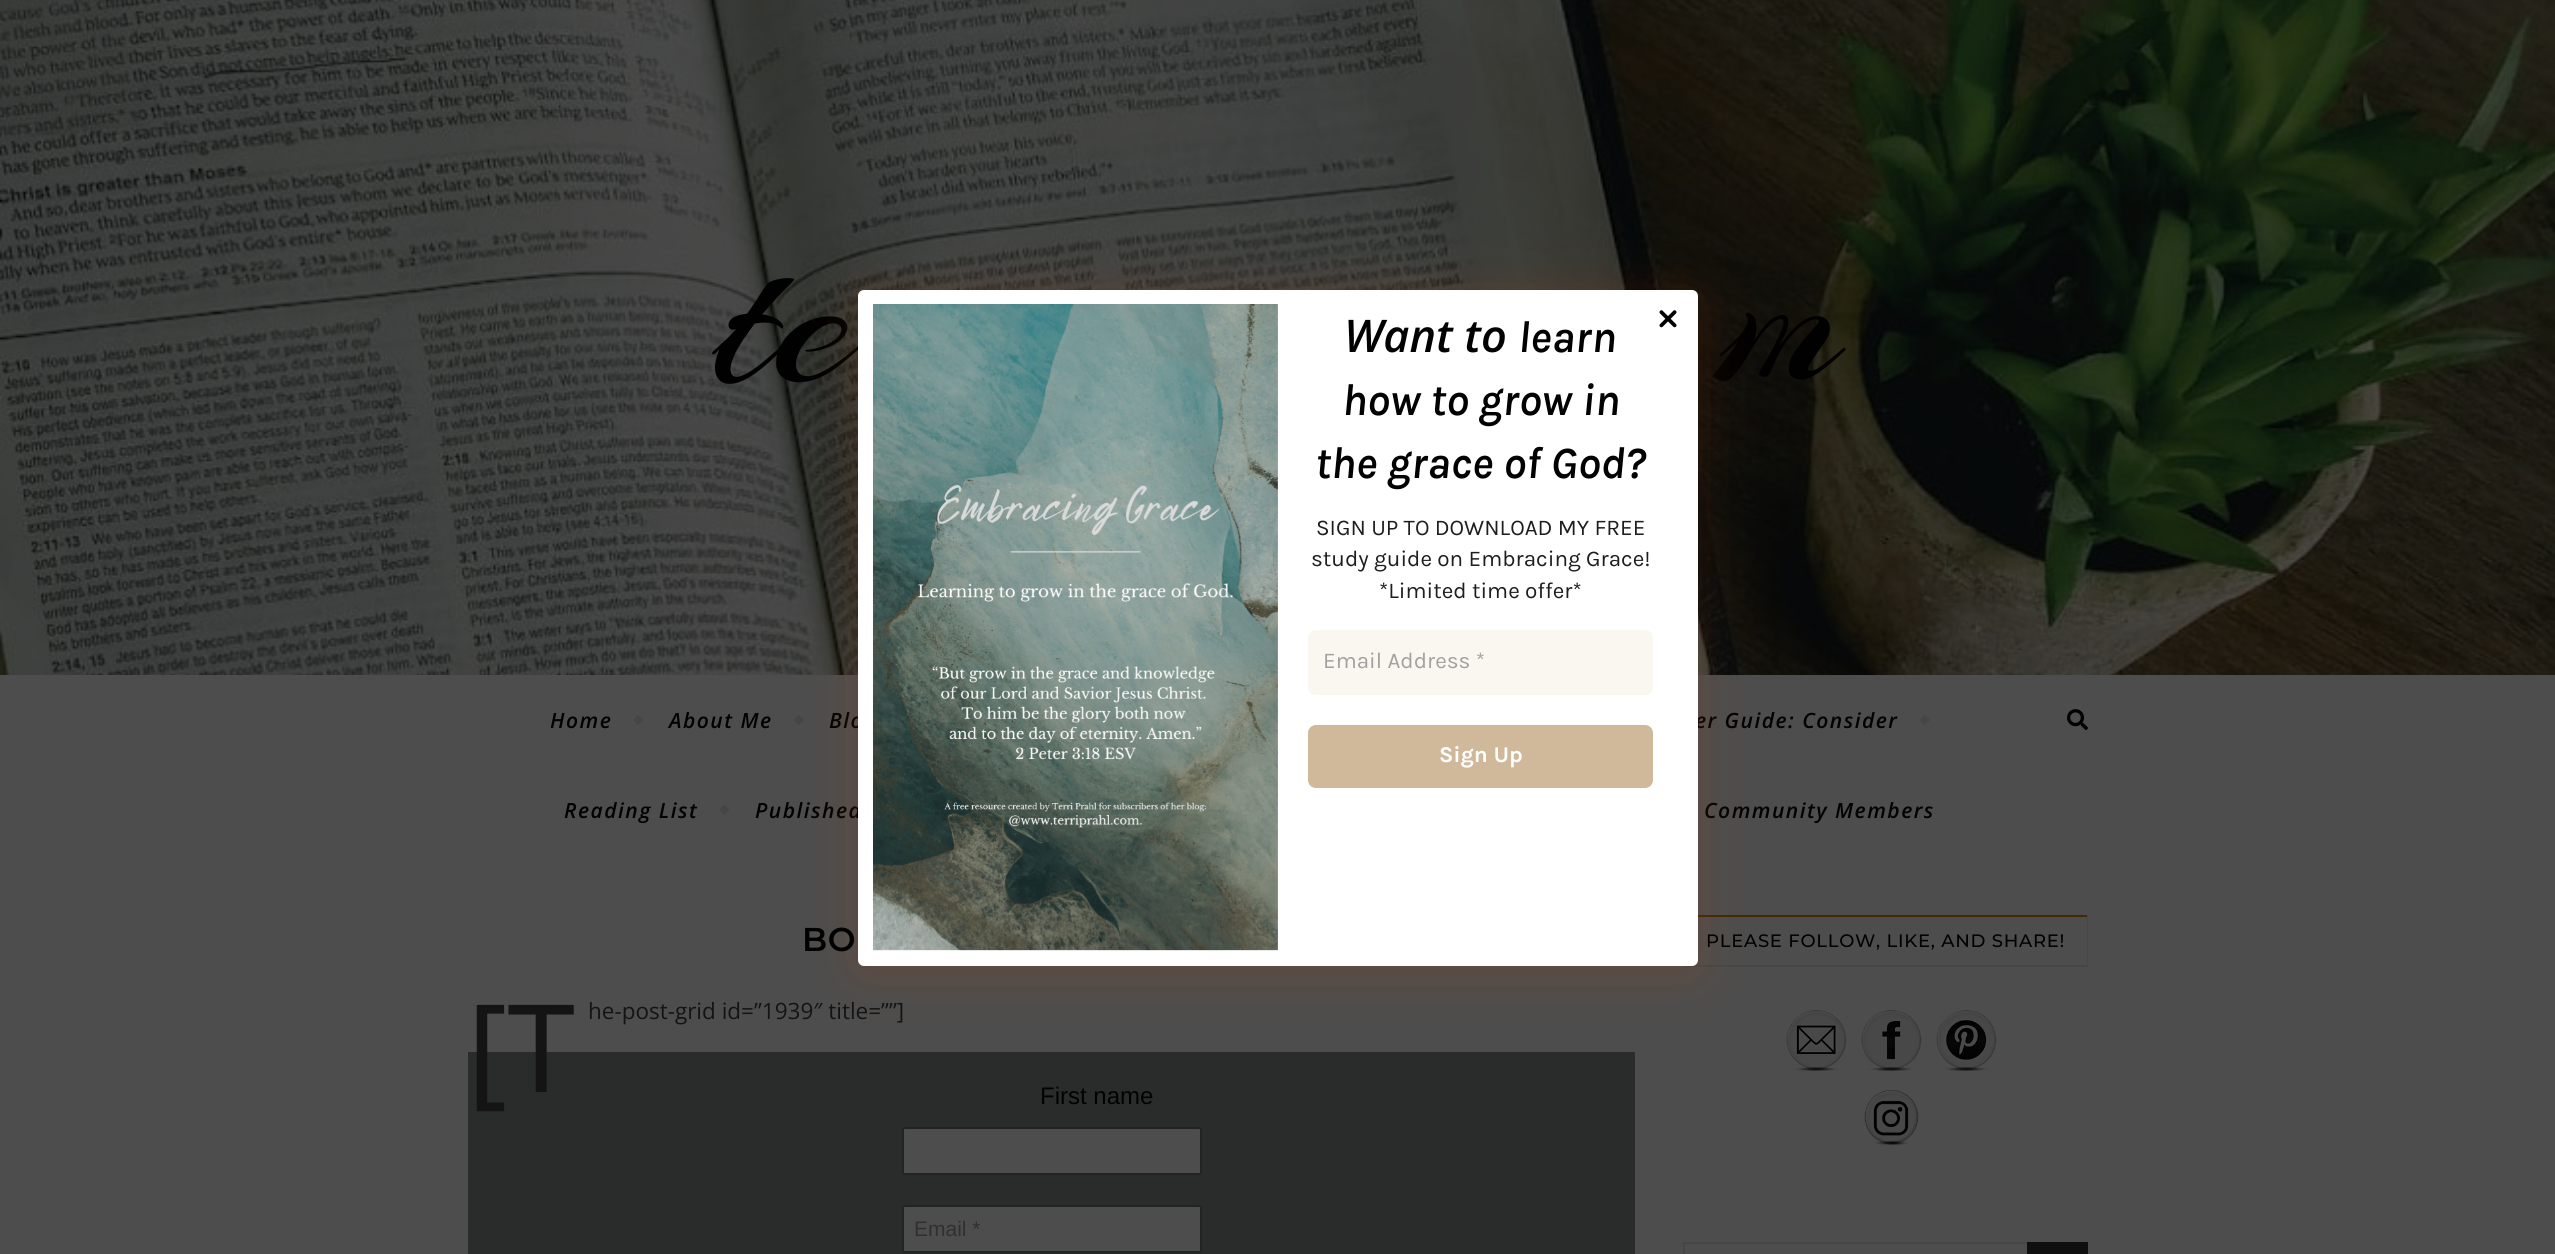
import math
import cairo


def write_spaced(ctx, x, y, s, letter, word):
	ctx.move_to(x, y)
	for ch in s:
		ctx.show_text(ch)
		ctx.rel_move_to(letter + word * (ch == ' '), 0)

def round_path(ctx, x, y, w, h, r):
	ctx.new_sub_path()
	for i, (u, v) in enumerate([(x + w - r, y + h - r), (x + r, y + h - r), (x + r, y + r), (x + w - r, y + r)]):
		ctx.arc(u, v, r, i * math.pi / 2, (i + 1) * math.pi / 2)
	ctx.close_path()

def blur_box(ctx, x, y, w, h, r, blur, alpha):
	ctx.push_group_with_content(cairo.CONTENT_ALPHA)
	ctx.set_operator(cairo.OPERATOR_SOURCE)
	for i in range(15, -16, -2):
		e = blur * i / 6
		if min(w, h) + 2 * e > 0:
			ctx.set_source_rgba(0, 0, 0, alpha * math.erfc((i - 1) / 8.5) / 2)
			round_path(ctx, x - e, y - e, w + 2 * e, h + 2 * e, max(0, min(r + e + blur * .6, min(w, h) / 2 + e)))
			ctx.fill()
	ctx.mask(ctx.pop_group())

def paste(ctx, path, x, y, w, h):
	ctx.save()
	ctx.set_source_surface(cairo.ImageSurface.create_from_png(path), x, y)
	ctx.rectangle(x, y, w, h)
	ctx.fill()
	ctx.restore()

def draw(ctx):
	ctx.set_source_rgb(0.302, 0.302, 0.302)
	ctx.paint()
	paste(ctx, 'media/1.png', 0, 0, 2555, 675)
	ctx.select_font_face('Arizonia')
	ctx.set_font_size(225)
	ctx.set_source_rgb(0.004, 0.004, 0.004)
	ctx.move_to(715, 380)
	ctx.show_text('te')
	ctx.move_to(1725, 380)
	ctx.show_text('m')
	ctx.select_font_face('Open Sans SemiBold', cairo.FONT_SLANT_ITALIC)
	ctx.set_font_size(21)
	write_spaced(ctx, 550, 728, 'Home', 1.5, 0)
	ctx.set_source_rgb(0.275, 0.275, 0.275)
	ctx.new_path()
	ctx.move_to(633, 720)
	ctx.line_to(638, 714.5)
	ctx.line_to(643.5, 720)
	ctx.line_to(638, 725.5)
	ctx.close_path()
	ctx.fill()
	ctx.set_source_rgb(0.004, 0.004, 0.004)
	write_spaced(ctx, 669, 728, 'About Me', 1.5, 0)
	ctx.set_source_rgb(0.275, 0.275, 0.275)
	ctx.new_path()
	ctx.move_to(793.5, 720)
	ctx.line_to(798.5, 714.5)
	ctx.line_to(804, 720)
	ctx.line_to(798.5, 725.5)
	ctx.close_path()
	ctx.fill()
	ctx.set_source_rgb(0.004, 0.004, 0.004)
	write_spaced(ctx, 829, 728, 'Blo', 1.5, 0)
	write_spaced(ctx, 1695, 728, 'er Guide: Consider', 1.5, 0)
	ctx.set_source_rgb(0.275, 0.275, 0.275)
	ctx.new_path()
	ctx.move_to(1919.5, 720)
	ctx.line_to(1924.5, 714.5)
	ctx.line_to(1930, 720)
	ctx.line_to(1924.5, 725.5)
	ctx.close_path()
	ctx.fill()
	ctx.set_source_rgb(0.004, 0.004, 0.004)
	write_spaced(ctx, 564, 818, 'Reading List', 1.5, 0)
	ctx.set_source_rgb(0.275, 0.275, 0.275)
	ctx.new_path()
	ctx.move_to(719, 810)
	ctx.line_to(724.5, 804.5)
	ctx.line_to(729.5, 810)
	ctx.line_to(724.5, 815.5)
	ctx.close_path()
	ctx.fill()
	ctx.set_source_rgb(0.004, 0.004, 0.004)
	write_spaced(ctx, 755, 818, 'Published', 1.5, 0)
	write_spaced(ctx, 1704, 818, 'Community Members', 1.5, 0)
	paste(ctx, 'media/2.png', 2067, 709, 21, 22)
	ctx.set_source_rgb(0.259, 0.161, 0.008)
	ctx.rectangle(1698, 915, 390, 2)
	ctx.fill()
	ctx.set_source_rgb(0.278, 0.278, 0.278)
	ctx.rectangle(2087, 915, 1, 51)
	ctx.rectangle(1683, 965, 405, 2)
	ctx.fill()
	ctx.set_source_rgb(0.765, 0.255, 0.008)
	blur_box(ctx, 858, 296, 840, 676, 6, 26, 0.2)
	ctx.set_source_rgb(1, 1, 1)
	round_path(ctx, 858, 290, 840, 676, 6)
	ctx.fill()
	paste(ctx, 'media/3.png', 873, 304, 405, 647)
	ctx.set_font_size(45)
	ctx.set_source_rgb(0.004, 0.004, 0.004)
	ctx.move_to(1344, 352)
	ctx.show_text('Want to')
	ctx.select_font_face('Karla SemiBold', cairo.FONT_SLANT_ITALIC)
	for x, y, s in [
		(1518, 352, 'learn'),
		(1342, 415, 'how to grow in'),
		(1315, 478, 'the grace of God?'),
	]:
		ctx.move_to(x, y)
		ctx.show_text(s)
	ctx.select_font_face('Karla')
	ctx.set_font_size(22.5)
	ctx.set_source_rgb(0.118, 0.118, 0.118)
	for x, y, s in [
		(1316, 535, 'SIGN UP TO DOWNLOAD MY FREE'),
		(1311, 566, 'study guide on Embracing Grace!'),
		(1379, 598, '*Limited time offer*'),
	]:
		ctx.move_to(x, y)
		ctx.show_text(s)
	ctx.set_source_rgb(0.98, 0.965, 0.945)
	round_path(ctx, 1308, 630, 345, 65, 8)
	ctx.fill()
	ctx.set_source_rgb(0.631, 0.631, 0.631)
	ctx.move_to(1323, 668)
	ctx.show_text('Email Address *')
	ctx.set_source_rgb(0.816, 0.722, 0.608)
	round_path(ctx, 1308, 725, 345, 63, 8)
	ctx.fill()
	ctx.select_font_face('Karla', cairo.FONT_SLANT_NORMAL, cairo.FONT_WEIGHT_BOLD)
	ctx.set_source_rgb(1, 1, 1)
	ctx.move_to(1439, 762)
	ctx.show_text('Sign Up')
	paste(ctx, 'media/4.png', 1659, 310, 18, 18)
	ctx.set_source_rgb(0.161, 0.173, 0.169)
	ctx.rectangle(468, 1052, 1167, 202)
	ctx.fill()
	ctx.select_font_face('Noto Sans')
	ctx.set_font_size(122)
	ctx.set_source_rgb(0.082, 0.082, 0.082)
	ctx.move_to(467, 1092)
	ctx.show_text('[T')
	ctx.select_font_face('Open Sans')
	ctx.set_font_size(22.5)
	ctx.move_to(588, 1019)
	ctx.show_text('he-post-grid id=”1939″ title=””]')
	ctx.select_font_face('Liberation Sans')
	ctx.set_font_size(24)
	ctx.set_source_rgb(0.004, 0.004, 0.004)
	ctx.move_to(1040, 1104)
	ctx.show_text('First name')
	ctx.set_source_rgb(0.302, 0.302, 0.302)
	round_path(ctx, 903, 1128, 298, 46, 2)
	ctx.fill_preserve()
	ctx.set_source_rgb(0.137, 0.137, 0.137)
	ctx.stroke()
	ctx.set_source_rgb(0.302, 0.302, 0.302)
	round_path(ctx, 903, 1206, 298, 46, 2)
	ctx.fill_preserve()
	ctx.set_source_rgb(0.137, 0.137, 0.137)
	ctx.stroke()
	ctx.set_font_size(21)
	ctx.set_source_rgb(0.188, 0.188, 0.188)
	ctx.move_to(914, 1236)
	ctx.show_text('Email *')
	ctx.select_font_face('Montserrat SemiBold')
	ctx.set_font_size(33)
	ctx.set_source_rgb(0.004, 0.004, 0.004)
	write_spaced(ctx, 802, 951, 'BO', 0.75, 0)
	ctx.select_font_face('Montserrat Medium')
	ctx.set_font_size(18)
	write_spaced(ctx, 1706, 947, 'PLEASE FOLLOW, LIKE, AND SHARE!', 0.75, 0)
	paste(ctx, 'media/5.png', 1786, 1010, 61, 61)
	paste(ctx, 'media/6.png', 1861, 1010, 61, 61)
	paste(ctx, 'media/7.png', 1936, 1010, 61, 61)
	paste(ctx, 'media/8.png', 1864, 1090, 55, 55)
	ctx.rectangle(1684, 1243, 403, 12)
	ctx.set_source_rgb(0.275, 0.275, 0.275)
	ctx.stroke()
	ctx.set_source_rgb(0.059, 0.059, 0.059)
	ctx.rectangle(2027, 1242, 61, 12)
	ctx.fill()


surface = cairo.ImageSurface(cairo.FORMAT_RGB24, 2555, 1254)
ctx = cairo.Context(surface)
options = cairo.FontOptions()
options.set_hint_metrics(cairo.HINT_METRICS_OFF)
options.set_hint_style(cairo.HINT_STYLE_NONE)
ctx.set_font_options(options)
ctx.set_miter_limit(4)
draw(ctx)
surface.write_to_png('image.png')
